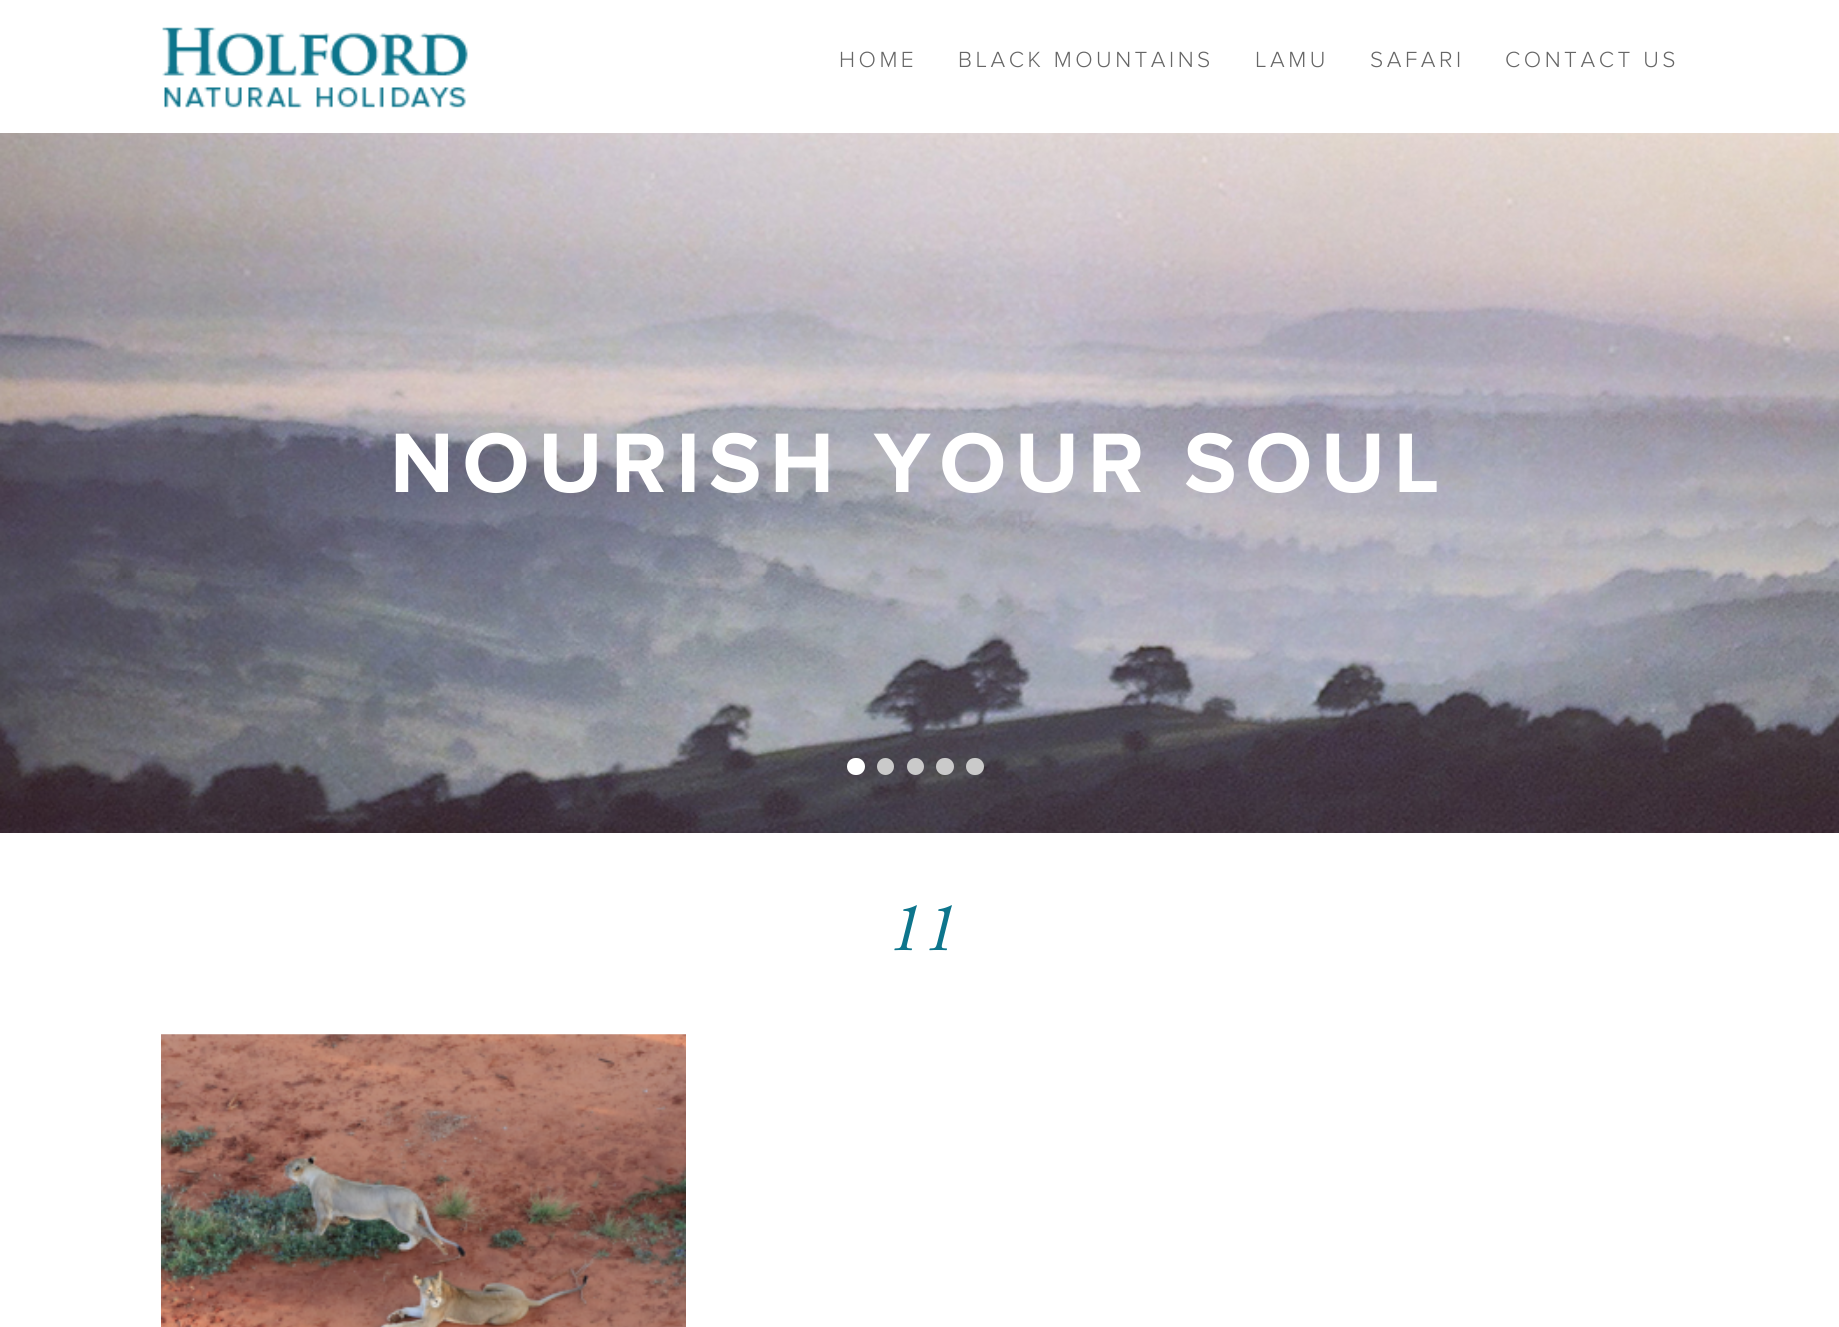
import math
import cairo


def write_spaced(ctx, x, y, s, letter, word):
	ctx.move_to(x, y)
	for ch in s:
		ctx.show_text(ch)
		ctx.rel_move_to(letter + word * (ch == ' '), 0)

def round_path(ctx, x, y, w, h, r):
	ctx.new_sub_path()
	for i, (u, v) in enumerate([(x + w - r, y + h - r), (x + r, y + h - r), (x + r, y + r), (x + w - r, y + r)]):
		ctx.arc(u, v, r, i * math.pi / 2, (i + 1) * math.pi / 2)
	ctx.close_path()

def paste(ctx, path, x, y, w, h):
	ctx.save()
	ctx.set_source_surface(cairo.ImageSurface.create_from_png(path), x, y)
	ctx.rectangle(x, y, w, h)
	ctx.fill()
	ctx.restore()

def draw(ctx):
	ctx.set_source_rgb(1, 1, 1)
	ctx.paint()
	paste(ctx, 'media/1.png', 162, 27, 306, 81)
	ctx.select_font_face('Proxima Nova Light')
	ctx.set_font_size(22.75)
	ctx.set_source_rgb(0.4, 0.4, 0.4)
	for x, y, s in [
		(839, 67, 'HOME'),
		(958, 67, 'BLACK MOUNTAINS'),
		(1255, 67, 'LAMU'),
		(1370, 67, 'SAFARI'),
		(1505, 67, 'CONTACT US'),
	]:
		write_spaced(ctx, x, y, s, 3.5, 0)
	ctx.select_font_face('Adobe Garamond', cairo.FONT_SLANT_ITALIC)
	ctx.set_font_size(70)
	ctx.set_source_rgb(0.051, 0.459, 0.549)
	ctx.move_to(885, 950)
	ctx.show_text('11')
	paste(ctx, 'media/2.png', 161, 1034, 525, 293)
	paste(ctx, 'media/3.png', 0, 133, 1839, 700)
	ctx.select_font_face('Proxima Nova', cairo.FONT_SLANT_NORMAL, cairo.FONT_WEIGHT_BOLD)
	ctx.set_font_size(87.5)
	ctx.set_source_rgb(1, 1, 1)
	write_spaced(ctx, 390, 492, 'NOURISH YOUR SOUL', 8.75, 0)
	round_path(ctx, 848, 759, 16, 15, 7.5)
	ctx.fill_preserve()
	ctx.stroke()
	ctx.set_source_rgb(0.792, 0.792, 0.792)
	ctx.arc(885.5, 766.5, 7.5, 0, 2 * math.pi)
	ctx.fill_preserve()
	ctx.stroke()
	ctx.arc(915.5, 766.5, 7.5, 0, 2 * math.pi)
	ctx.fill_preserve()
	ctx.stroke()
	round_path(ctx, 937, 759, 16, 15, 7.5)
	ctx.fill_preserve()
	ctx.stroke()
	round_path(ctx, 967, 759, 16, 15, 7.5)
	ctx.fill_preserve()
	ctx.stroke()


surface = cairo.ImageSurface(cairo.FORMAT_RGB24, 1839, 1327)
ctx = cairo.Context(surface)
options = cairo.FontOptions()
options.set_hint_metrics(cairo.HINT_METRICS_OFF)
options.set_hint_style(cairo.HINT_STYLE_NONE)
ctx.set_font_options(options)
ctx.set_miter_limit(4)
draw(ctx)
surface.write_to_png('image.png')
